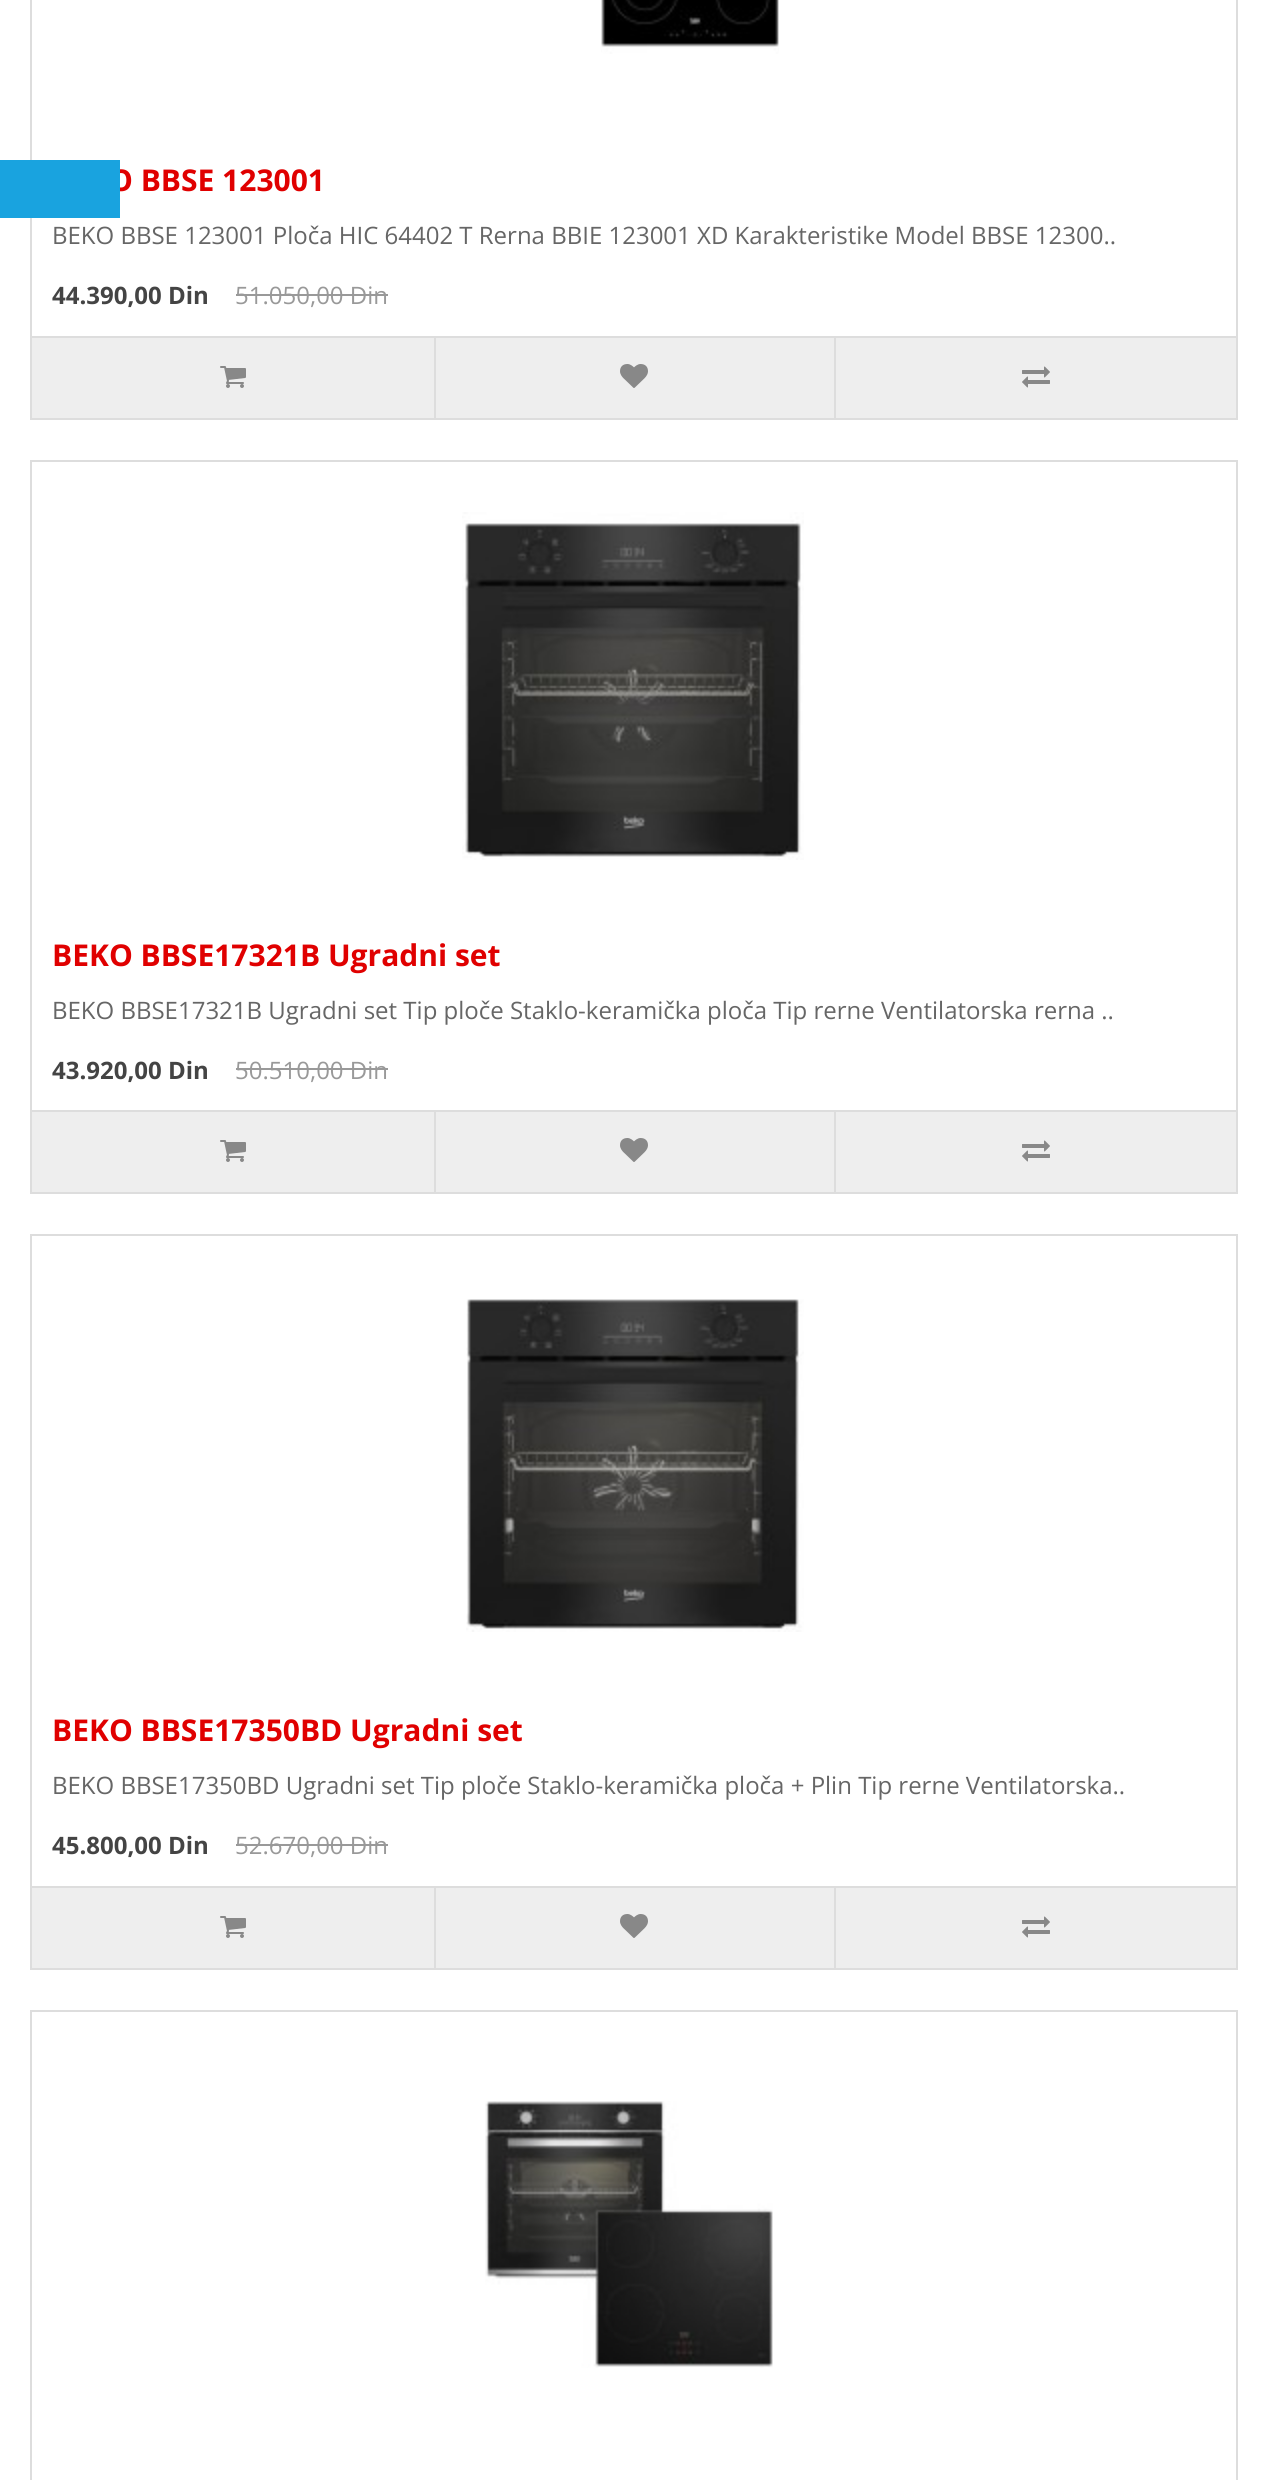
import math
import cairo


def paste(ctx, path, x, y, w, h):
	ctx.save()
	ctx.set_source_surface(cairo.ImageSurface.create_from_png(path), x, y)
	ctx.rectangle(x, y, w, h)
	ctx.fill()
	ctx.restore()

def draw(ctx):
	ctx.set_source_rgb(1, 1, 1)
	ctx.paint()
	ctx.rectangle(31, -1, 1206, 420)
	ctx.set_source_rgb(0.867, 0.867, 0.867)
	ctx.stroke()
	ctx.select_font_face('Open Sans', cairo.FONT_SLANT_NORMAL, cairo.FONT_WEIGHT_BOLD)
	ctx.set_font_size(30)
	ctx.set_source_rgb(0.878, 0, 0)
	ctx.move_to(109, 191)
	ctx.show_text('O BBSE 123001')
	ctx.set_source_rgb(0.098, 0.639, 0.875)
	ctx.rectangle(0, 160, 120, 58)
	ctx.fill()
	paste(ctx, 'media/1.png', 601, 0, 178, 54)
	ctx.select_font_face('Open Sans')
	ctx.set_font_size(24)
	ctx.set_source_rgb(0.4, 0.4, 0.4)
	ctx.move_to(52, 244)
	ctx.show_text('BEKO BBSE 123001 Ploča HIC 64402 T Rerna BBIE 123001 XD Karakteristike Model BBSE 12300..')
	ctx.select_font_face('Open Sans', cairo.FONT_SLANT_NORMAL, cairo.FONT_WEIGHT_BOLD)
	ctx.set_source_rgb(0.267, 0.267, 0.267)
	ctx.move_to(52, 304)
	ctx.show_text('44.390,00 Din')
	ctx.select_font_face('Open Sans')
	ctx.set_source_rgb(0.6, 0.6, 0.6)
	ctx.move_to(235, 304)
	ctx.show_text('51.050,00 Din')
	ctx.rectangle(236, 294, 152, 2)
	ctx.fill()
	ctx.set_source_rgb(0.933, 0.933, 0.933)
	ctx.rectangle(32, 338, 1204, 80)
	ctx.fill()
	ctx.set_source_rgb(0.867, 0.867, 0.867)
	ctx.rectangle(32, 336, 1204, 2)
	ctx.fill()
	paste(ctx, 'media/2.png', 220, 366, 26, 22)
	ctx.rectangle(434, 338, 2, 80)
	ctx.fill()
	paste(ctx, 'media/3.png', 620, 364, 28, 24)
	ctx.rectangle(834, 338, 2, 80)
	ctx.fill()
	paste(ctx, 'media/4.png', 1022, 366, 28, 22)
	ctx.rectangle(31, 461, 1206, 732)
	ctx.stroke()
	paste(ctx, 'media/5.png', 462, 512, 342, 348)
	ctx.select_font_face('Open Sans', cairo.FONT_SLANT_NORMAL, cairo.FONT_WEIGHT_BOLD)
	ctx.set_font_size(30)
	ctx.set_source_rgb(0.878, 0, 0)
	ctx.move_to(52, 966)
	ctx.show_text('BEKO BBSE17321B Ugradni set')
	ctx.select_font_face('Open Sans')
	ctx.set_font_size(24)
	ctx.set_source_rgb(0.4, 0.4, 0.4)
	ctx.move_to(52, 1019)
	ctx.show_text('BEKO BBSE17321B Ugradni set Tip ploče Staklo-keramička ploča Tip rerne Ventilatorska rerna ..')
	ctx.select_font_face('Open Sans', cairo.FONT_SLANT_NORMAL, cairo.FONT_WEIGHT_BOLD)
	ctx.set_source_rgb(0.267, 0.267, 0.267)
	ctx.move_to(52, 1079)
	ctx.show_text('43.920,00 Din')
	ctx.select_font_face('Open Sans')
	ctx.set_source_rgb(0.6, 0.6, 0.6)
	ctx.move_to(235, 1079)
	ctx.show_text('50.510,00 Din')
	ctx.rectangle(236, 1068, 152, 2)
	ctx.fill()
	ctx.set_source_rgb(0.933, 0.933, 0.933)
	ctx.rectangle(32, 1112, 1204, 80)
	ctx.fill()
	ctx.set_source_rgb(0.867, 0.867, 0.867)
	ctx.rectangle(32, 1110, 1204, 2)
	ctx.fill()
	paste(ctx, 'media/2.png', 220, 1140, 26, 22)
	ctx.rectangle(434, 1112, 2, 80)
	ctx.fill()
	paste(ctx, 'media/3.png', 620, 1138, 28, 24)
	ctx.rectangle(834, 1112, 2, 80)
	ctx.fill()
	paste(ctx, 'media/4.png', 1022, 1140, 28, 22)
	ctx.rectangle(31, 1235, 1206, 734)
	ctx.stroke()
	paste(ctx, 'media/6.png', 466, 1299, 338, 333)
	ctx.select_font_face('Open Sans', cairo.FONT_SLANT_NORMAL, cairo.FONT_WEIGHT_BOLD)
	ctx.set_font_size(30)
	ctx.set_source_rgb(0.878, 0, 0)
	ctx.move_to(52, 1741)
	ctx.show_text('BEKO BBSE17350BD Ugradni set')
	ctx.select_font_face('Open Sans')
	ctx.set_font_size(24)
	ctx.set_source_rgb(0.4, 0.4, 0.4)
	ctx.move_to(52, 1794)
	ctx.show_text('BEKO BBSE17350BD Ugradni set Tip ploče Staklo-keramička ploča + Plin Tip rerne Ventilatorska..')
	ctx.select_font_face('Open Sans', cairo.FONT_SLANT_NORMAL, cairo.FONT_WEIGHT_BOLD)
	ctx.set_source_rgb(0.267, 0.267, 0.267)
	ctx.move_to(52, 1854)
	ctx.show_text('45.800,00 Din')
	ctx.select_font_face('Open Sans')
	ctx.set_source_rgb(0.6, 0.6, 0.6)
	ctx.move_to(235, 1854)
	ctx.show_text('52.670,00 Din')
	ctx.rectangle(236, 1844, 152, 2)
	ctx.fill()
	ctx.set_source_rgb(0.933, 0.933, 0.933)
	ctx.rectangle(32, 1888, 1204, 80)
	ctx.fill()
	ctx.set_source_rgb(0.867, 0.867, 0.867)
	ctx.rectangle(32, 1886, 1204, 2)
	ctx.fill()
	paste(ctx, 'media/2.png', 220, 1916, 26, 22)
	ctx.rectangle(434, 1888, 2, 80)
	ctx.fill()
	paste(ctx, 'media/3.png', 620, 1914, 28, 24)
	ctx.rectangle(834, 1888, 2, 80)
	ctx.fill()
	paste(ctx, 'media/4.png', 1022, 1916, 28, 22)
	ctx.rectangle(31, 2011, 1206, 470)
	ctx.stroke()
	paste(ctx, 'media/7.png', 485, 2101, 288, 267)


surface = cairo.ImageSurface(cairo.FORMAT_RGB24, 1267, 2480)
ctx = cairo.Context(surface)
options = cairo.FontOptions()
options.set_hint_metrics(cairo.HINT_METRICS_OFF)
options.set_hint_style(cairo.HINT_STYLE_NONE)
ctx.set_font_options(options)
ctx.set_miter_limit(4)
draw(ctx)
surface.write_to_png('image.png')
